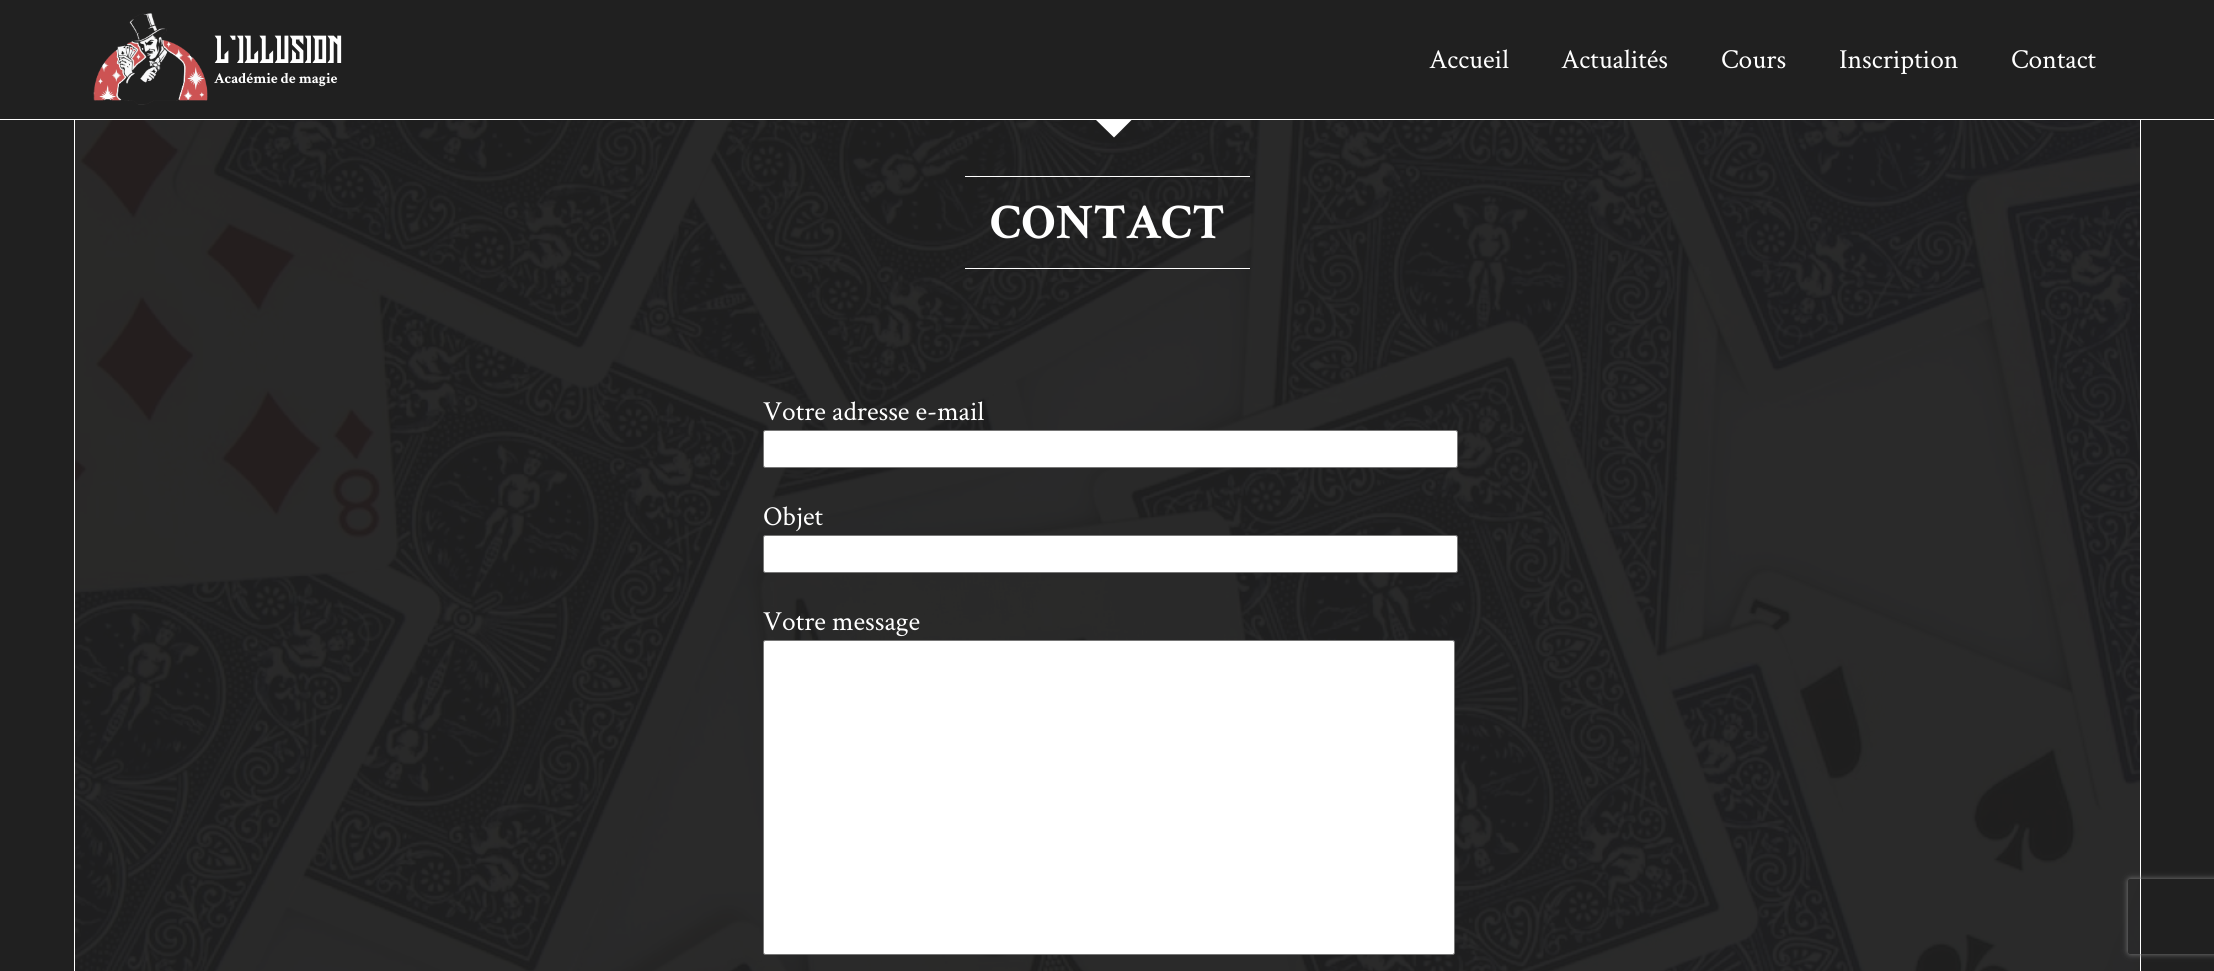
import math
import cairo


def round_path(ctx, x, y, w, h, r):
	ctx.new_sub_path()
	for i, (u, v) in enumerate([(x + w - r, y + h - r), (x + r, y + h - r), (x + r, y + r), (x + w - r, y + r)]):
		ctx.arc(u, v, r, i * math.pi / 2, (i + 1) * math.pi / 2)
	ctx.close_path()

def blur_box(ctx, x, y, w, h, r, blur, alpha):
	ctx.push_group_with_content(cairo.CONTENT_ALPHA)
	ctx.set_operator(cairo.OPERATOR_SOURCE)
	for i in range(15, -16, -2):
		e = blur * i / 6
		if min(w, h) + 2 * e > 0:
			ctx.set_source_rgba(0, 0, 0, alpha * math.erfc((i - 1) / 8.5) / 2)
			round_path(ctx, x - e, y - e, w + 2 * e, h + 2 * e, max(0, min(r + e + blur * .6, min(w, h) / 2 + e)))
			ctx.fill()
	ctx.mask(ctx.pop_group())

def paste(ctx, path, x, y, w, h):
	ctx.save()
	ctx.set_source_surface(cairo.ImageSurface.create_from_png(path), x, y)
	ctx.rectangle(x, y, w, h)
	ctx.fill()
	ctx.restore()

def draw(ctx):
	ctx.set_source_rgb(0.125, 0.125, 0.125)
	ctx.paint()
	ctx.set_source_rgb(1, 1, 1)
	ctx.rectangle(0, 119, 2214, 1)
	ctx.fill()
	paste(ctx, 'media/1.png', 93, 13, 115, 92)
	ctx.select_font_face('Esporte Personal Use')
	ctx.set_font_size(27.5)
	ctx.move_to(214, 63)
	ctx.show_text('L\'ILLUSION')
	ctx.select_font_face('Crimson Text', cairo.FONT_SLANT_NORMAL, cairo.FONT_WEIGHT_BOLD)
	ctx.set_font_size(15)
	ctx.move_to(214, 83)
	ctx.show_text('Académie de magie')
	ctx.select_font_face('Crimson Text')
	ctx.set_font_size(27.5)
	for x, y, s in [
		(1429, 68, 'Accueil'),
		(1561, 68, 'Actualités'),
		(1721, 68, 'Cours'),
		(1839, 68, 'Inscription'),
		(2011, 68, 'Contact'),
	]:
		ctx.move_to(x, y)
		ctx.show_text(s)
	paste(ctx, 'media/2.png', 75, 120, 2065, 851)
	ctx.new_path()
	ctx.move_to(1095, 119)
	ctx.line_to(1132.5, 119)
	ctx.line_to(1114, 137.5)
	ctx.close_path()
	ctx.fill()
	ctx.rectangle(2140, 120, 1, 851)
	ctx.rectangle(74, 120, 1, 851)
	ctx.rectangle(965, 176, 285, 1)
	ctx.rectangle(965, 268, 285, 1)
	ctx.fill()
	ctx.select_font_face('Crimson Text', cairo.FONT_SLANT_NORMAL, cairo.FONT_WEIGHT_BOLD)
	ctx.set_font_size(50)
	ctx.move_to(990, 238)
	ctx.show_text('CONTACT')
	ctx.select_font_face('Crimson Text')
	ctx.set_font_size(27.5)
	ctx.move_to(763, 420)
	ctx.show_text('Votre adresse e-mail')
	round_path(ctx, 763.5, 430.5, 694, 37, 2)
	ctx.fill_preserve()
	ctx.set_source_rgb(0.463, 0.463, 0.463)
	ctx.set_line_width(1)
	ctx.stroke()
	ctx.set_source_rgb(1, 1, 1)
	ctx.move_to(763, 525)
	ctx.show_text('Objet')
	round_path(ctx, 763.5, 535.5, 694, 37, 2)
	ctx.fill_preserve()
	ctx.set_source_rgb(0.463, 0.463, 0.463)
	ctx.stroke()
	ctx.set_source_rgb(1, 1, 1)
	ctx.move_to(763, 630)
	ctx.show_text('Votre message')
	round_path(ctx, 763.5, 640.5, 691, 314, 2)
	ctx.fill_preserve()
	ctx.set_source_rgb(0.463, 0.463, 0.463)
	ctx.stroke()
	ctx.save()
	ctx.set_fill_rule(cairo.FILL_RULE_EVEN_ODD)
	ctx.new_path()
	ctx.move_to(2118, 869)
	ctx.line_to(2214, 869)
	ctx.line_to(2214, 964)
	ctx.line_to(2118, 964)
	ctx.close_path()
	ctx.move_to(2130.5, 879)
	ctx.line_to(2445.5, 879)
	ctx.curve_to(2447, 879, 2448, 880, 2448, 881.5)
	ctx.line_to(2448, 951.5)
	ctx.curve_to(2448, 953, 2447, 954, 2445.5, 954)
	ctx.line_to(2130.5, 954)
	ctx.curve_to(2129, 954, 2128, 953, 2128, 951.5)
	ctx.line_to(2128, 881.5)
	ctx.curve_to(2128, 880, 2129, 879, 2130.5, 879)
	ctx.close_path()
	ctx.clip()
	ctx.set_source_rgb(0.502, 0.502, 0.502)
	blur_box(ctx, 2128, 879, 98, 75, 2.5, 3, 1)
	ctx.restore()


surface = cairo.ImageSurface(cairo.FORMAT_RGB24, 2214, 971)
ctx = cairo.Context(surface)
options = cairo.FontOptions()
options.set_hint_metrics(cairo.HINT_METRICS_OFF)
options.set_hint_style(cairo.HINT_STYLE_NONE)
ctx.set_font_options(options)
ctx.set_miter_limit(4)
draw(ctx)
surface.write_to_png('image.png')
